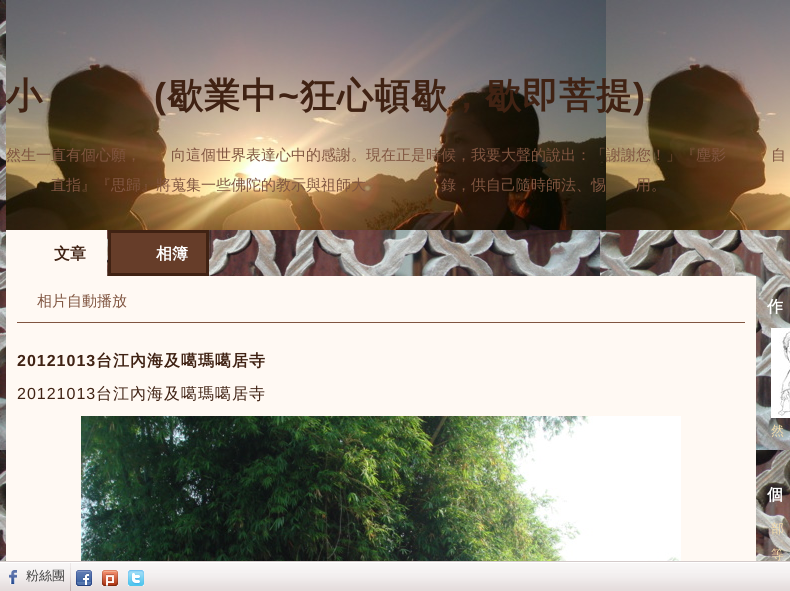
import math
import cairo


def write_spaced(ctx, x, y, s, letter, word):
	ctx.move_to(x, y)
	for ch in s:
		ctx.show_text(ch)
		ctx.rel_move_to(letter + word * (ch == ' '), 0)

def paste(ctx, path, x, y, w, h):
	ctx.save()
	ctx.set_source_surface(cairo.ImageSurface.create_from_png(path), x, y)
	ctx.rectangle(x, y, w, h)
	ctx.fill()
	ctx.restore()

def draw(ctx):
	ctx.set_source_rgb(1, 1, 1)
	ctx.paint()
	paste(ctx, 'media/1.png', 0, 0, 790, 561)
	paste(ctx, 'media/2.png', 6, 0, 784, 230)
	ctx.select_font_face('WenQuanYi Zen Hei', cairo.FONT_SLANT_NORMAL, cairo.FONT_WEIGHT_BOLD)
	ctx.set_font_size(36)
	ctx.set_source_rgb(0.251, 0.133, 0.075)
	write_spaced(ctx, 6, 108, '小', 1, 0)
	ctx.select_font_face('Liberation Sans', cairo.FONT_SLANT_NORMAL, cairo.FONT_WEIGHT_BOLD)
	write_spaced(ctx, 154, 108, '(', 1, 0)
	ctx.select_font_face('WenQuanYi Zen Hei', cairo.FONT_SLANT_NORMAL, cairo.FONT_WEIGHT_BOLD)
	write_spaced(ctx, 167, 108, '歇業中', 1, 0)
	ctx.select_font_face('Liberation Sans', cairo.FONT_SLANT_NORMAL, cairo.FONT_WEIGHT_BOLD)
	write_spaced(ctx, 278, 108, '~', 1, 0)
	ctx.select_font_face('WenQuanYi Zen Hei', cairo.FONT_SLANT_NORMAL, cairo.FONT_WEIGHT_BOLD)
	write_spaced(ctx, 300, 108, '狂心頓歇，歇即菩提', 1, 0)
	ctx.select_font_face('Liberation Sans', cairo.FONT_SLANT_NORMAL, cairo.FONT_WEIGHT_BOLD)
	write_spaced(ctx, 633, 108, ')', 1, 0)
	ctx.select_font_face('WenQuanYi Zen Hei Medium')
	ctx.set_font_size(15)
	ctx.set_source_rgb(0.502, 0.333, 0.251)
	for x, y, s in [
		(6, 160, '然生一直有個心願，'),
		(171, 160, '向這個世界表達心中的感謝。現在正是時候，我要大聲的說出：「謝謝您！」『塵影'),
		(771, 160, '自'),
		(51, 190, '直指』『思歸』將蒐集一些佛陀的教示與祖師大'),
		(441, 190, '錄，供自己隨時師法、惕'),
		(636, 190, '用。'),
	]:
		ctx.move_to(x, y)
		ctx.show_text(s)
	ctx.set_source_rgb(1, 0.976, 0.953)
	ctx.rectangle(6, 230, 101, 46)
	ctx.fill()
	ctx.select_font_face('WenQuanYi Zen Hei', cairo.FONT_SLANT_NORMAL, cairo.FONT_WEIGHT_BOLD)
	ctx.set_font_size(16)
	ctx.set_source_rgb(0.251, 0.133, 0.075)
	ctx.move_to(54, 259)
	ctx.show_text('文章')
	ctx.set_source_rgb(0.4, 0.239, 0.161)
	ctx.rectangle(109.5, 231.5, 98, 43)
	ctx.fill_preserve()
	ctx.set_source_rgb(0.251, 0.133, 0.075)
	ctx.set_line_width(3)
	ctx.stroke()
	ctx.set_source_rgb(1, 1, 1)
	ctx.move_to(156, 259)
	ctx.show_text('相簿')
	ctx.set_source_rgb(1, 0.976, 0.953)
	ctx.rectangle(6, 276, 750, 285)
	ctx.fill()
	ctx.set_source_rgb(0.502, 0.333, 0.251)
	ctx.rectangle(17, 322, 728, 1)
	ctx.fill()
	ctx.select_font_face('WenQuanYi Zen Hei Medium')
	ctx.set_font_size(15)
	ctx.move_to(37, 306)
	ctx.show_text('相片自動播放')
	ctx.select_font_face('Liberation Sans', cairo.FONT_SLANT_NORMAL, cairo.FONT_WEIGHT_BOLD)
	ctx.set_font_size(16)
	ctx.set_source_rgb(0.251, 0.133, 0.075)
	write_spaced(ctx, 17, 366, '20121013', 1, 0)
	ctx.select_font_face('WenQuanYi Zen Hei', cairo.FONT_SLANT_NORMAL, cairo.FONT_WEIGHT_BOLD)
	write_spaced(ctx, 96, 366, '台江內海及噶瑪噶居寺', 1, 0)
	ctx.select_font_face('Liberation Sans')
	write_spaced(ctx, 17, 399, '20121013', 1, 0)
	ctx.select_font_face('WenQuanYi Zen Hei Medium')
	write_spaced(ctx, 96, 399, '台江內海及噶瑪噶居寺', 1, 0)
	paste(ctx, 'media/3.png', 81, 416, 600, 145)
	ctx.select_font_face('WenQuanYi Zen Hei', cairo.FONT_SLANT_NORMAL, cairo.FONT_WEIGHT_BOLD)
	ctx.set_source_rgb(1, 1, 1)
	write_spaced(ctx, 767, 312, '作', 1, 0)
	paste(ctx, 'media/4.png', 771, 328, 19, 90)
	ctx.select_font_face('WenQuanYi Zen Hei Medium')
	ctx.set_font_size(13)
	ctx.set_source_rgb(0.949, 0.855, 0.667)
	ctx.move_to(771, 435)
	ctx.show_text('然')
	ctx.select_font_face('WenQuanYi Zen Hei', cairo.FONT_SLANT_NORMAL, cairo.FONT_WEIGHT_BOLD)
	ctx.set_font_size(16)
	ctx.set_source_rgb(1, 1, 1)
	write_spaced(ctx, 767, 500, '個', 1, 0)
	ctx.select_font_face('WenQuanYi Zen Hei Medium')
	ctx.set_font_size(13)
	ctx.set_source_rgb(0.949, 0.855, 0.667)
	ctx.move_to(771, 533)
	ctx.show_text('部')
	ctx.move_to(771, 559)
	ctx.show_text('等')
	paste(ctx, 'media/5.png', 0, 561, 790, 30)
	paste(ctx, 'media/6.png', 9, 570, 8, 14)
	ctx.set_source_rgb(0.267, 0.267, 0.267)
	ctx.move_to(26, 580)
	ctx.show_text('粉絲團')
	paste(ctx, 'media/7.png', 70, 563, 1, 28)
	paste(ctx, 'media/8.png', 76, 570, 16, 16)
	paste(ctx, 'media/9.png', 102, 570, 16, 16)
	paste(ctx, 'media/10.png', 128, 570, 16, 16)


surface = cairo.ImageSurface(cairo.FORMAT_RGB24, 790, 591)
ctx = cairo.Context(surface)
options = cairo.FontOptions()
options.set_hint_metrics(cairo.HINT_METRICS_OFF)
options.set_hint_style(cairo.HINT_STYLE_NONE)
ctx.set_font_options(options)
ctx.set_miter_limit(4)
draw(ctx)
surface.write_to_png('image.png')
